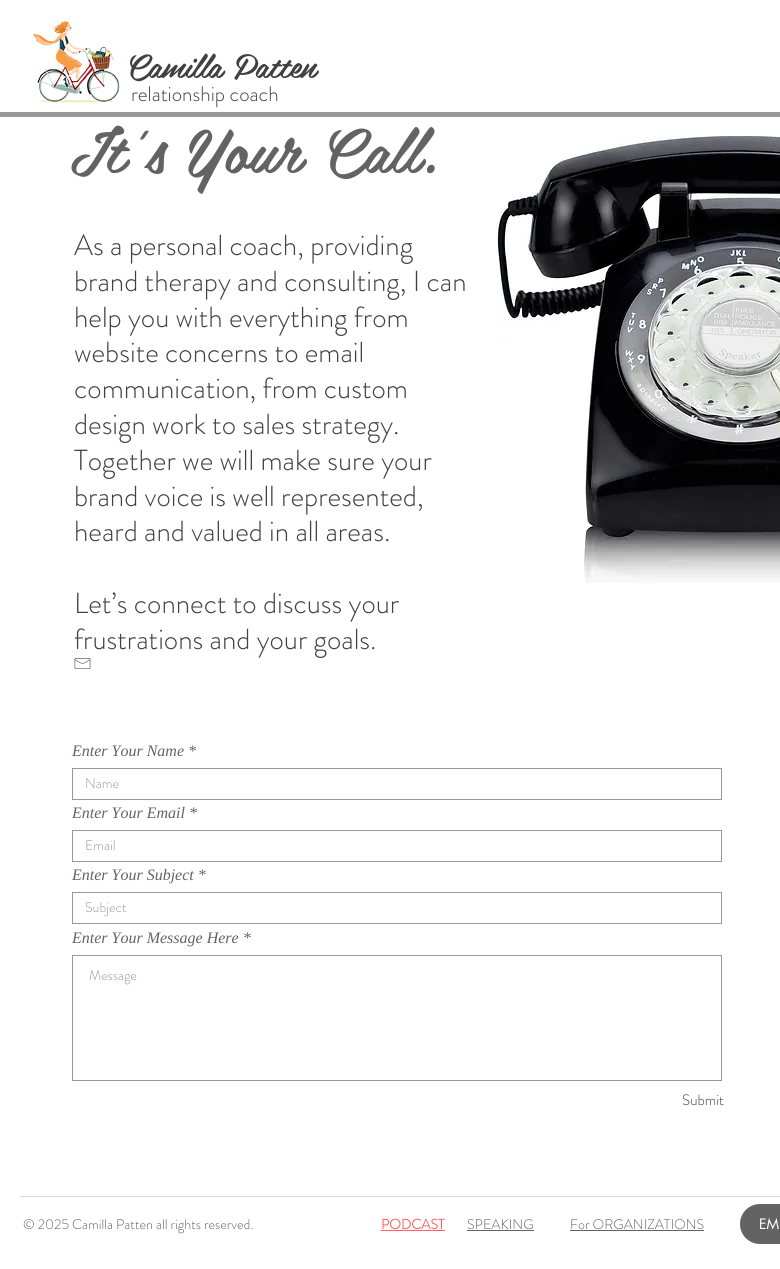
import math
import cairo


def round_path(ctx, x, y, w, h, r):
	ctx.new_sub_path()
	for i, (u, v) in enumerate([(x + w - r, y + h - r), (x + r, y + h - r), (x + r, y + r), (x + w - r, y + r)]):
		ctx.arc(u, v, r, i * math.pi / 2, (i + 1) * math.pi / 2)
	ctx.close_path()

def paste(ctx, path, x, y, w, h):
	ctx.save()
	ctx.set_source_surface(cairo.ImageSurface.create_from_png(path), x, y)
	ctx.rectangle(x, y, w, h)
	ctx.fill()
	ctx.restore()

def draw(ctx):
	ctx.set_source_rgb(1, 1, 1)
	ctx.paint()
	paste(ctx, 'media/1.png', 32, 21, 88, 82)
	ctx.select_font_face('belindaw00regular')
	ctx.set_font_size(33)
	ctx.set_source_rgb(0.255, 0.255, 0.255)
	ctx.move_to(126, 78)
	ctx.show_text('Camilla Patten')
	ctx.select_font_face('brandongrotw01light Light')
	ctx.set_font_size(21)
	ctx.move_to(131, 101)
	ctx.show_text('relationship coach')
	ctx.set_source_rgb(0.6, 0.6, 0.6)
	ctx.rectangle(0, 112, 780, 5)
	ctx.fill()
	ctx.select_font_face('belindaw00regular')
	ctx.set_font_size(62)
	ctx.set_source_rgb(0.388, 0.388, 0.388)
	ctx.move_to(70, 173)
	ctx.show_text('It\'s Your Call.')
	paste(ctx, 'media/2.png', 496, 136, 284, 447)
	ctx.select_font_face('brandongrotw01light Light')
	ctx.set_font_size(29)
	ctx.set_source_rgb(0.255, 0.255, 0.255)
	for x, y, s in [
		(74, 255, 'As a personal coach, providing'),
		(74, 291, 'brand therapy and consulting, I can'),
		(74, 327, 'help you with everything from'),
		(74, 362, 'website concerns to email'),
		(74, 398, 'communication, from custom'),
		(74, 434, 'design work to sales strategy.'),
		(74, 470, 'Together we will make sure your'),
		(74, 506, 'brand voice is well represented,'),
		(74, 541, 'heard and valued in all areas.'),
		(74, 613, 'Let’s connect to discuss your'),
		(74, 649, 'frustrations and your goals.'),
	]:
		ctx.move_to(x, y)
		ctx.show_text(s)
	paste(ctx, 'media/3.png', 74, 658, 17, 11)
	ctx.select_font_face('Liberation Serif', cairo.FONT_SLANT_ITALIC)
	ctx.set_font_size(16)
	ctx.set_source_rgb(0.388, 0.388, 0.388)
	ctx.move_to(72, 756)
	ctx.show_text('Enter Your Name *')
	ctx.rectangle(72.5, 768.5, 649, 31)
	ctx.set_source_rgb(0.592, 0.592, 0.592)
	ctx.set_line_width(1)
	ctx.stroke()
	ctx.select_font_face('brandongrotw01light Light')
	ctx.set_font_size(14)
	ctx.set_source_rgb(0.6, 0.6, 0.6)
	ctx.move_to(85, 788)
	ctx.show_text('Name')
	ctx.select_font_face('Liberation Serif', cairo.FONT_SLANT_ITALIC)
	ctx.set_font_size(16)
	ctx.set_source_rgb(0.388, 0.388, 0.388)
	ctx.move_to(72, 818)
	ctx.show_text('Enter Your Email *')
	ctx.rectangle(72.5, 830.5, 649, 31)
	ctx.set_source_rgb(0.592, 0.592, 0.592)
	ctx.stroke()
	ctx.select_font_face('brandongrotw01light Light')
	ctx.set_font_size(14)
	ctx.set_source_rgb(0.6, 0.6, 0.6)
	ctx.move_to(85, 850)
	ctx.show_text('Email')
	ctx.select_font_face('Liberation Serif', cairo.FONT_SLANT_ITALIC)
	ctx.set_font_size(16)
	ctx.set_source_rgb(0.388, 0.388, 0.388)
	ctx.move_to(72, 880)
	ctx.show_text('Enter Your Subject *')
	ctx.rectangle(72.5, 892.5, 649, 31)
	ctx.set_source_rgb(0.592, 0.592, 0.592)
	ctx.stroke()
	ctx.select_font_face('brandongrotw01light Light')
	ctx.set_font_size(14)
	ctx.set_source_rgb(0.6, 0.6, 0.6)
	ctx.move_to(85, 912)
	ctx.show_text('Subject')
	ctx.select_font_face('Liberation Serif', cairo.FONT_SLANT_ITALIC)
	ctx.set_font_size(16)
	ctx.set_source_rgb(0.388, 0.388, 0.388)
	ctx.move_to(72, 943)
	ctx.show_text('Enter Your Message Here *')
	ctx.rectangle(72.5, 955.5, 649, 125)
	ctx.set_source_rgb(0.592, 0.592, 0.592)
	ctx.stroke()
	ctx.select_font_face('brandongrotw01light Light')
	ctx.set_font_size(14)
	ctx.set_source_rgb(0.6, 0.6, 0.6)
	ctx.move_to(89, 980)
	ctx.show_text('Message')
	ctx.set_font_size(15)
	ctx.set_source_rgb(0.255, 0.255, 0.255)
	ctx.move_to(682, 1105)
	ctx.show_text('Submit')
	ctx.set_source_rgb(0.839, 0.839, 0.831)
	ctx.rectangle(20, 1196, 760, 1)
	ctx.fill()
	ctx.set_font_size(14)
	ctx.set_source_rgb(0.388, 0.388, 0.388)
	ctx.move_to(23, 1229)
	ctx.show_text('© 2025 Camilla Patten all rights reserved.')
	ctx.select_font_face('brandongrotw01light', cairo.FONT_SLANT_NORMAL, cairo.FONT_WEIGHT_BOLD)
	ctx.set_source_rgb(1, 0.38, 0.38)
	ctx.move_to(381, 1229)
	ctx.show_text('PODCAST')
	ctx.rectangle(381, 1230, 64, 1)
	ctx.fill()
	ctx.select_font_face('brandongrotw01light Light')
	ctx.set_source_rgb(0.388, 0.388, 0.388)
	ctx.move_to(467, 1229)
	ctx.show_text('SPEAKING')
	ctx.rectangle(467, 1230, 67, 1)
	ctx.fill()
	ctx.move_to(570, 1229)
	ctx.show_text('For ORGANIZATIONS')
	ctx.rectangle(570, 1230, 134, 1)
	ctx.fill()
	round_path(ctx, 740, 1204, 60, 40, 20)
	ctx.fill()
	ctx.select_font_face('futura')
	ctx.set_source_rgb(1, 1, 1)
	ctx.move_to(759, 1229)
	ctx.show_text('EM')


surface = cairo.ImageSurface(cairo.FORMAT_RGB24, 780, 1269)
ctx = cairo.Context(surface)
options = cairo.FontOptions()
options.set_hint_metrics(cairo.HINT_METRICS_OFF)
options.set_hint_style(cairo.HINT_STYLE_NONE)
ctx.set_font_options(options)
ctx.set_miter_limit(4)
draw(ctx)
surface.write_to_png('image.png')
